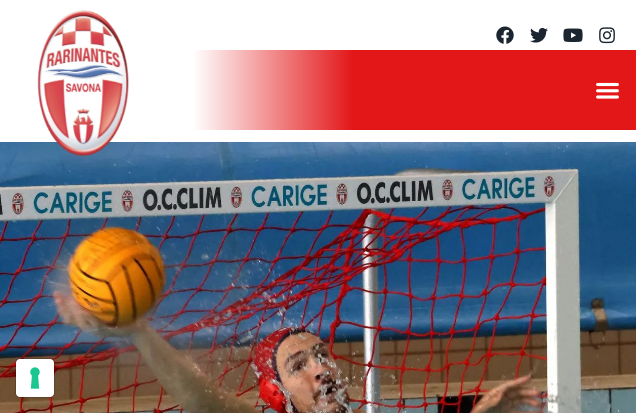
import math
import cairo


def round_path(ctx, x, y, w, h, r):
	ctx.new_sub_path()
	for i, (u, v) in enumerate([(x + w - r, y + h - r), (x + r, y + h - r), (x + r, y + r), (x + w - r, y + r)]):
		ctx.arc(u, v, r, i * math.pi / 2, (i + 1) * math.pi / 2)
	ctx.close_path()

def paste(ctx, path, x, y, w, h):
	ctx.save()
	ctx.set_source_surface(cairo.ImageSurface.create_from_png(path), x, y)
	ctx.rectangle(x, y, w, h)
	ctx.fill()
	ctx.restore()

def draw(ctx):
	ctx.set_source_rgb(1, 1, 1)
	ctx.paint()
	paste(ctx, 'media/7.png', 0, 142, 636, 271)
	paste(ctx, 'media/1.png', 37, 10, 92, 146)
	paste(ctx, 'media/2.png', 496, 26, 18, 18)
	paste(ctx, 'media/3.png', 530, 27, 18, 16)
	paste(ctx, 'media/4.png', 563, 28, 20, 14)
	paste(ctx, 'media/5.png', 599, 27, 16, 17)
	gradient = cairo.LinearGradient(165, 90, 636, 90)
	gradient.add_color_stop_rgba(0.06, 1, 1, 1, 1)
	gradient.add_color_stop_rgba(0.4, 0.89, 0.086, 0.094, 1)
	ctx.set_source(gradient)
	ctx.rectangle(195, 50, 441, 80)
	ctx.fill()
	paste(ctx, 'media/6.png', 596, 82, 23, 17)
	round_path(ctx, 15.5, 358.5, 39, 39, 4.5)
	ctx.set_source_rgba(0, 0, 0, 0.15)
	ctx.set_line_width(1)
	ctx.stroke()
	ctx.set_source_rgb(1, 1, 1)
	round_path(ctx, 16, 359, 38, 38, 4)
	ctx.fill()
	paste(ctx, 'media/8.png', 30, 367, 10, 22)


surface = cairo.ImageSurface(cairo.FORMAT_RGB24, 636, 413)
ctx = cairo.Context(surface)
options = cairo.FontOptions()
options.set_hint_metrics(cairo.HINT_METRICS_OFF)
options.set_hint_style(cairo.HINT_STYLE_NONE)
ctx.set_font_options(options)
ctx.set_miter_limit(4)
draw(ctx)
surface.write_to_png('image.png')
